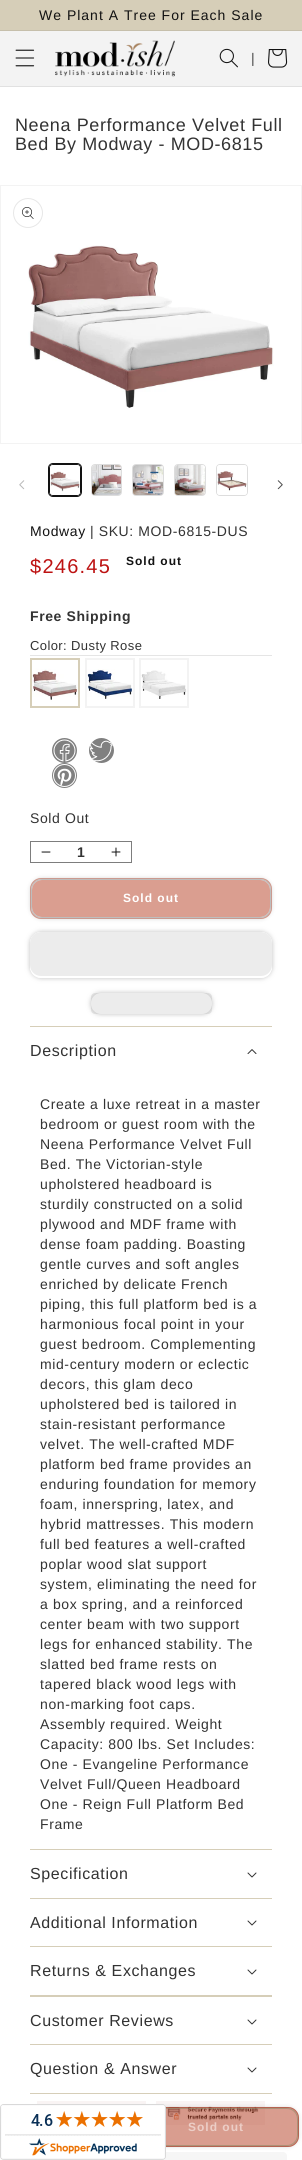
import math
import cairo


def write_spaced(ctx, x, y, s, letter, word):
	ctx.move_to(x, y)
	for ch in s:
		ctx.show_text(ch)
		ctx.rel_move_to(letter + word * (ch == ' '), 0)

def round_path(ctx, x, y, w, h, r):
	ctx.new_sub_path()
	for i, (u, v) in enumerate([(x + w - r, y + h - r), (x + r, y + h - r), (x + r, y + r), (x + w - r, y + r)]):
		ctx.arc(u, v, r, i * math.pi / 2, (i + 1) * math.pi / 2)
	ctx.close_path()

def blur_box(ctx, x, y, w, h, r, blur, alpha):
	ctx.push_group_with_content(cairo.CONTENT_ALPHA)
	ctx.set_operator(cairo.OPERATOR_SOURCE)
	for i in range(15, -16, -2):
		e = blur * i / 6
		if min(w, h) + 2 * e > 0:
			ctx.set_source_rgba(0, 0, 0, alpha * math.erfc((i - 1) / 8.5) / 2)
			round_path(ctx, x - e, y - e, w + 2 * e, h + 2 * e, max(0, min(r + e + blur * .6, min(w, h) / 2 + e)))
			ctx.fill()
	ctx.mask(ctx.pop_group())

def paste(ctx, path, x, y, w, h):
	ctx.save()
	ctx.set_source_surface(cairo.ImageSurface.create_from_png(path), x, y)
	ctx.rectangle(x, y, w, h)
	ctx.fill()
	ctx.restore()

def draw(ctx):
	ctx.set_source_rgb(1, 1, 1)
	ctx.paint()
	ctx.set_source_rgb(0.839, 0.808, 0.722)
	ctx.rectangle(0, 0, 302, 30)
	ctx.fill()
	ctx.set_source_rgb(0.776, 0.749, 0.671)
	ctx.rectangle(0, 30, 302, 1)
	ctx.fill()
	ctx.select_font_face('Liberation Sans')
	ctx.set_font_size(14)
	ctx.set_source_rgb(0.071, 0.071, 0.071)
	write_spaced(ctx, 39, 20, 'We Plant A Tree For Each Sale', 1, 0)
	ctx.set_source_rgb(0.953, 0.953, 0.953)
	ctx.rectangle(0, 31, 302, 55)
	ctx.fill()
	ctx.set_source_rgb(0.882, 0.882, 0.882)
	ctx.rectangle(0, 86, 302, 1)
	ctx.fill()
	paste(ctx, 'media/1.png', 15, 49, 20, 18)
	paste(ctx, 'media/2.png', 55, 40, 120, 37)
	paste(ctx, 'media/3.png', 219, 48, 19, 20)
	ctx.set_source_rgb(0.29, 0.29, 0.29)
	write_spaced(ctx, 251, 63, '|', 0.6, 0)
	paste(ctx, 'media/4.png', 268, 49, 20, 19)
	ctx.set_font_size(18)
	ctx.set_source_rgb(0.2, 0.2, 0.2)
	write_spaced(ctx, 15, 131, 'Neena Performance Velvet Full', 0.6, 0)
	write_spaced(ctx, 15, 150, 'Bed By Modway - MOD-6815', 0.6, 0)
	ctx.rectangle(0.5, 185.5, 301, 258)
	ctx.set_source_rgb(0.953, 0.953, 0.953)
	ctx.set_line_width(1)
	ctx.stroke()
	paste(ctx, 'media/5.png', 28, 245, 246, 163)
	ctx.arc(28, 213, 14.5, 0, 2 * math.pi)
	ctx.set_source_rgb(0.906, 0.906, 0.906)
	ctx.stroke()
	paste(ctx, 'media/6.png', 22, 207, 12, 12)
	paste(ctx, 'media/7.png', 19, 480, 6, 10)
	round_path(ctx, 48.5, 463.5, 33, 33, 4.5)
	ctx.set_source_rgb(0.071, 0.071, 0.071)
	ctx.stroke()
	round_path(ctx, 49.5, 464.5, 31, 31, 3.5)
	ctx.stroke()
	paste(ctx, 'media/8.png', 50, 465, 30, 30)
	round_path(ctx, 91.5, 464.5, 30, 31, 3.5)
	ctx.set_source_rgb(0.867, 0.867, 0.867)
	ctx.stroke()
	paste(ctx, 'media/9.png', 92, 465, 29, 30)
	round_path(ctx, 132.5, 464.5, 31, 31, 3.5)
	ctx.stroke()
	paste(ctx, 'media/10.png', 133, 465, 30, 30)
	round_path(ctx, 174.5, 464.5, 31, 31, 3.5)
	ctx.stroke()
	paste(ctx, 'media/11.png', 175, 465, 30, 30)
	round_path(ctx, 216.5, 464.5, 31, 31, 3.5)
	ctx.stroke()
	paste(ctx, 'media/12.png', 217, 465, 30, 30)
	paste(ctx, 'media/13.png', 277, 480, 6, 10)
	ctx.set_font_size(14)
	ctx.set_source_rgb(0.071, 0.071, 0.071)
	write_spaced(ctx, 30, 536, 'Modway', 0.6, 0)
	ctx.set_source_rgb(0.2, 0.2, 0.2)
	write_spaced(ctx, 90, 536, '| SKU: MOD-6815-DUS', 0.6, 0)
	ctx.set_font_size(20)
	ctx.set_source_rgb(0.741, 0.071, 0.071)
	write_spaced(ctx, 30, 573, '$246.45', 1.25, 0)
	ctx.select_font_face('Liberation Sans', cairo.FONT_SLANT_NORMAL, cairo.FONT_WEIGHT_BOLD)
	ctx.set_font_size(12)
	ctx.set_source_rgb(0.071, 0.071, 0.071)
	write_spaced(ctx, 126, 565, 'Sold out', 1, 0)
	ctx.set_font_size(14)
	ctx.set_source_rgb(0.2, 0.2, 0.2)
	write_spaced(ctx, 30, 621, 'Free Shipping', 0.6, 0)
	ctx.set_source_rgb(0.898, 0.898, 0.898)
	ctx.rectangle(30, 655, 242, 1)
	ctx.fill()
	ctx.select_font_face('Liberation Sans')
	ctx.set_font_size(13)
	ctx.set_source_rgb(0.2, 0.2, 0.2)
	write_spaced(ctx, 30, 650, 'Color: Dusty Rose', 0.4, 0)
	ctx.rectangle(31, 659, 48, 48)
	ctx.set_source_rgb(0.839, 0.808, 0.722)
	ctx.set_line_width(2)
	ctx.stroke()
	paste(ctx, 'media/14.png', 32, 660, 46, 46)
	ctx.rectangle(86, 659, 48, 48)
	ctx.set_source_rgb(0.953, 0.953, 0.953)
	ctx.stroke()
	paste(ctx, 'media/15.png', 87, 669, 46, 30)
	ctx.rectangle(140, 659, 48, 48)
	ctx.stroke()
	paste(ctx, 'media/16.png', 141, 670, 46, 29)
	ctx.set_source_rgb(0.502, 0.502, 0.502)
	ctx.arc(64.5, 750.5, 12.5, 0, 2 * math.pi)
	ctx.fill()
	paste(ctx, 'media/17.png', 53, 739, 23, 23)
	ctx.arc(101.5, 750.5, 12.5, 0, 2 * math.pi)
	ctx.fill()
	paste(ctx, 'media/18.png', 90, 740, 23, 22)
	ctx.arc(64.5, 775.5, 12.5, 0, 2 * math.pi)
	ctx.fill()
	paste(ctx, 'media/19.png', 53, 764, 23, 23)
	ctx.set_font_size(14)
	ctx.set_source_rgb(0.2, 0.2, 0.2)
	write_spaced(ctx, 30, 823, 'Sold Out', 0.6, 0)
	paste(ctx, 'media/20.png', 41, 851, 10, 2)
	paste(ctx, 'media/21.png', 111, 847, 10, 10)
	ctx.rectangle(30.5, 841.5, 101, 21)
	ctx.set_source_rgb(0.49, 0.49, 0.49)
	ctx.set_line_width(1)
	ctx.stroke()
	ctx.select_font_face('Liberation Sans', cairo.FONT_SLANT_NORMAL, cairo.FONT_WEIGHT_BOLD)
	ctx.set_source_rgb(0.2, 0.2, 0.2)
	ctx.move_to(77, 857)
	ctx.show_text('1')
	ctx.set_source_rgb(0.855, 0.62, 0.565)
	round_path(ctx, 30.5, 878.5, 241, 40, 10.5)
	ctx.fill_preserve()
	ctx.stroke()
	ctx.save()
	ctx.set_fill_rule(cairo.FILL_RULE_EVEN_ODD)
	ctx.new_path()
	ctx.move_to(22, 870)
	ctx.line_to(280, 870)
	ctx.line_to(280, 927)
	ctx.line_to(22, 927)
	ctx.close_path()
	ctx.move_to(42, 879)
	ctx.line_to(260, 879)
	ctx.curve_to(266, 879, 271, 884, 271, 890)
	ctx.line_to(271, 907)
	ctx.curve_to(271, 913, 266, 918, 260, 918)
	ctx.line_to(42, 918)
	ctx.curve_to(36, 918, 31, 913, 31, 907)
	ctx.line_to(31, 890)
	ctx.curve_to(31, 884, 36, 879, 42, 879)
	ctx.close_path()
	ctx.clip()
	ctx.set_source_rgb(0.537, 0.537, 0.537)
	blur_box(ctx, 31, 879, 240, 39, 11, 2.5, 0.45)
	ctx.restore()
	round_path(ctx, 31.5, 879.5, 239, 38, 10.5)
	ctx.set_source_rgb(1, 1, 1)
	ctx.stroke()
	round_path(ctx, 31.5, 879.5, 239, 38, 10.5)
	ctx.set_source_rgba(0.537, 0.537, 0.537, 0.55)
	ctx.stroke()
	ctx.set_font_size(12)
	ctx.set_source_rgb(1, 1, 1)
	write_spaced(ctx, 123, 902, 'Sold out', 1, 0)
	ctx.save()
	ctx.set_fill_rule(cairo.FILL_RULE_EVEN_ODD)
	ctx.new_path()
	ctx.move_to(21, 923)
	ctx.line_to(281, 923)
	ctx.line_to(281, 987)
	ctx.line_to(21, 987)
	ctx.close_path()
	ctx.move_to(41, 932)
	ctx.line_to(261, 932)
	ctx.curve_to(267, 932, 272, 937, 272, 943)
	ctx.line_to(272, 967)
	ctx.curve_to(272, 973, 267, 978, 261, 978)
	ctx.line_to(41, 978)
	ctx.curve_to(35, 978, 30, 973, 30, 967)
	ctx.line_to(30, 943)
	ctx.curve_to(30, 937, 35, 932, 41, 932)
	ctx.close_path()
	ctx.clip()
	ctx.set_source_rgb(0.443, 0.443, 0.443)
	blur_box(ctx, 30, 932, 242, 46, 11, 2.5, 0.45)
	ctx.restore()
	ctx.set_source_rgb(0.922, 0.922, 0.922)
	round_path(ctx, 30, 932, 242, 44, 11)
	ctx.fill()
	round_path(ctx, 91, 993, 121, 21, 4)
	ctx.fill()
	ctx.save()
	ctx.set_fill_rule(cairo.FILL_RULE_EVEN_ODD)
	ctx.new_path()
	ctx.move_to(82, 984)
	ctx.line_to(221, 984)
	ctx.line_to(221, 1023)
	ctx.line_to(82, 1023)
	ctx.close_path()
	ctx.move_to(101.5, 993)
	ctx.line_to(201.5, 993)
	ctx.curve_to(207.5, 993, 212, 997.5, 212, 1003.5)
	ctx.curve_to(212, 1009.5, 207.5, 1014, 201.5, 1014)
	ctx.line_to(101.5, 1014)
	ctx.curve_to(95.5, 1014, 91, 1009.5, 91, 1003.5)
	ctx.curve_to(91, 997.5, 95.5, 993, 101.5, 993)
	ctx.close_path()
	ctx.clip()
	ctx.set_source_rgb(0.443, 0.443, 0.443)
	blur_box(ctx, 91, 993, 121, 21, 10.5, 2.5, 0.45)
	ctx.restore()
	ctx.set_source_rgb(0.839, 0.808, 0.722)
	ctx.rectangle(30, 1026, 242, 1)
	ctx.fill()
	ctx.rectangle(30, 1849, 242, 1)
	ctx.fill()
	ctx.select_font_face('Liberation Sans')
	ctx.set_font_size(16)
	ctx.set_source_rgb(0.2, 0.2, 0.2)
	write_spaced(ctx, 30, 1056, 'Description', 0.6, 0)
	paste(ctx, 'media/22.png', 247, 1049, 10, 5)
	ctx.set_font_size(14)
	for x, y, s in [
		(40, 1109, 'Create a luxe retreat in a master'),
		(40, 1129, 'bedroom or guest room with the'),
		(40, 1149, 'Neena Performance Velvet Full'),
		(40, 1169, 'Bed. The Victorian-style'),
		(40, 1189, 'upholstered headboard is'),
		(40, 1209, 'sturdily constructed on a solid'),
		(40, 1229, 'plywood and MDF frame with'),
		(40, 1249, 'dense foam padding. Boasting'),
		(40, 1269, 'gentle curves and soft angles'),
		(40, 1289, 'enriched by delicate French'),
		(40, 1309, 'piping, this full platform bed is a'),
		(40, 1329, 'harmonious focal point in your'),
		(40, 1349, 'guest bedroom. Complementing'),
		(40, 1369, 'mid-century modern or eclectic'),
		(40, 1389, 'decors, this glam deco'),
		(40, 1409, 'upholstered bed is tailored in'),
		(40, 1429, 'stain-resistant performance'),
		(40, 1449, 'velvet. The well-crafted MDF'),
		(40, 1469, 'platform bed frame provides an'),
		(40, 1489, 'enduring foundation for memory'),
		(40, 1509, 'foam, innerspring, latex, and'),
		(40, 1529, 'hybrid mattresses. This modern'),
		(40, 1549, 'full bed features a well-crafted'),
		(40, 1569, 'poplar wood slat support'),
		(40, 1589, 'system, eliminating the need for'),
		(40, 1609, 'a box spring, and a reinforced'),
		(40, 1629, 'center beam with two support'),
		(40, 1649, 'legs for enhanced stability. The'),
		(40, 1669, 'slatted bed frame rests on'),
		(40, 1689, 'tapered black wood legs with'),
		(40, 1709, 'non-marking foot caps.'),
		(40, 1729, 'Assembly required. Weight'),
		(40, 1749, 'Capacity: 800 lbs. Set Includes:'),
		(40, 1769, 'One - Evangeline Performance'),
		(40, 1789, 'Velvet Full/Queen Headboard'),
		(40, 1809, 'One - Reign Full Platform Bed'),
		(40, 1829, 'Frame'),
	]:
		write_spaced(ctx, x, y, s, 0.6, 0)
	ctx.set_source_rgb(0.839, 0.808, 0.722)
	ctx.rectangle(30, 1898, 242, 1)
	ctx.fill()
	ctx.set_font_size(16)
	ctx.set_source_rgb(0.2, 0.2, 0.2)
	write_spaced(ctx, 30, 1879, 'Specification', 0.6, 0)
	paste(ctx, 'media/23.png', 247, 1872, 10, 6)
	ctx.set_source_rgb(0.839, 0.808, 0.722)
	ctx.rectangle(30, 1946, 242, 1)
	ctx.fill()
	ctx.set_source_rgb(0.2, 0.2, 0.2)
	write_spaced(ctx, 30, 1928, 'Additional Information', 0.6, 0)
	paste(ctx, 'media/23.png', 247, 1920, 10, 6)
	ctx.set_source_rgb(0.839, 0.808, 0.722)
	ctx.rectangle(30, 1995, 242, 2)
	ctx.fill()
	ctx.set_source_rgb(0.2, 0.2, 0.2)
	write_spaced(ctx, 30, 1976, 'Returns & Exchanges', 0.6, 0)
	paste(ctx, 'media/23.png', 247, 1969, 10, 6)
	ctx.set_source_rgb(0.839, 0.808, 0.722)
	ctx.rectangle(30, 2044, 242, 1)
	ctx.fill()
	ctx.set_source_rgb(0.2, 0.2, 0.2)
	write_spaced(ctx, 30, 2026, 'Customer Reviews', 0.6, 0)
	paste(ctx, 'media/23.png', 247, 2019, 10, 6)
	ctx.set_source_rgb(0.839, 0.808, 0.722)
	ctx.rectangle(30, 2093, 242, 1)
	ctx.fill()
	ctx.set_source_rgb(0.2, 0.2, 0.2)
	write_spaced(ctx, 30, 2074, 'Question & Answer', 0.6, 0)
	paste(ctx, 'media/23.png', 247, 2067, 10, 6)
	paste(ctx, 'media/24.png', 37, 2101, 109, 3)
	paste(ctx, 'media/25.png', 156, 2101, 109, 24)
	ctx.set_source_rgba(0.71, 0.235, 0.125, 0.5)
	round_path(ctx, 133, 2107, 166, 40, 11)
	ctx.fill()
	round_path(ctx, 133.5, 2107.5, 165, 39, 10.5)
	ctx.stroke()
	ctx.set_source_rgb(0.961, 0.961, 0.961)
	round_path(ctx, 15, 2152, 272, 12, 4)
	ctx.fill()
	ctx.save()
	ctx.set_fill_rule(cairo.FILL_RULE_EVEN_ODD)
	ctx.new_path()
	ctx.move_to(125, 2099)
	ctx.line_to(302, 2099)
	ctx.line_to(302, 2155)
	ctx.line_to(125, 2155)
	ctx.close_path()
	ctx.move_to(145, 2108)
	ctx.line_to(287, 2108)
	ctx.curve_to(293, 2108, 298, 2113, 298, 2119)
	ctx.line_to(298, 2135)
	ctx.curve_to(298, 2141, 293, 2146, 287, 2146)
	ctx.line_to(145, 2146)
	ctx.curve_to(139, 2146, 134, 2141, 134, 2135)
	ctx.line_to(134, 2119)
	ctx.curve_to(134, 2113, 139, 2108, 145, 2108)
	ctx.close_path()
	ctx.clip()
	ctx.set_source_rgb(0.071, 0.071, 0.071)
	blur_box(ctx, 134, 2108, 164, 38, 11, 2.5, 0.23)
	ctx.restore()
	round_path(ctx, 134.5, 2108.5, 163, 37, 10.5)
	ctx.set_source_rgba(0.867, 0.816, 0.612, 0.5)
	ctx.stroke()
	round_path(ctx, 134.5, 2108.5, 163, 37, 10.5)
	ctx.set_source_rgba(0.071, 0.071, 0.071, 0.23)
	ctx.stroke()
	ctx.select_font_face('Liberation Sans', cairo.FONT_SLANT_NORMAL, cairo.FONT_WEIGHT_BOLD)
	ctx.set_font_size(12)
	ctx.set_source_rgb(0.925, 0.808, 0.78)
	write_spaced(ctx, 188, 2131, 'Sold out', 1, 0)
	paste(ctx, 'media/26.png', 0, 2104, 166, 56)


surface = cairo.ImageSurface(cairo.FORMAT_RGB24, 302, 2160)
ctx = cairo.Context(surface)
options = cairo.FontOptions()
options.set_hint_metrics(cairo.HINT_METRICS_OFF)
options.set_hint_style(cairo.HINT_STYLE_NONE)
ctx.set_font_options(options)
ctx.set_miter_limit(4)
draw(ctx)
surface.write_to_png('image.png')
